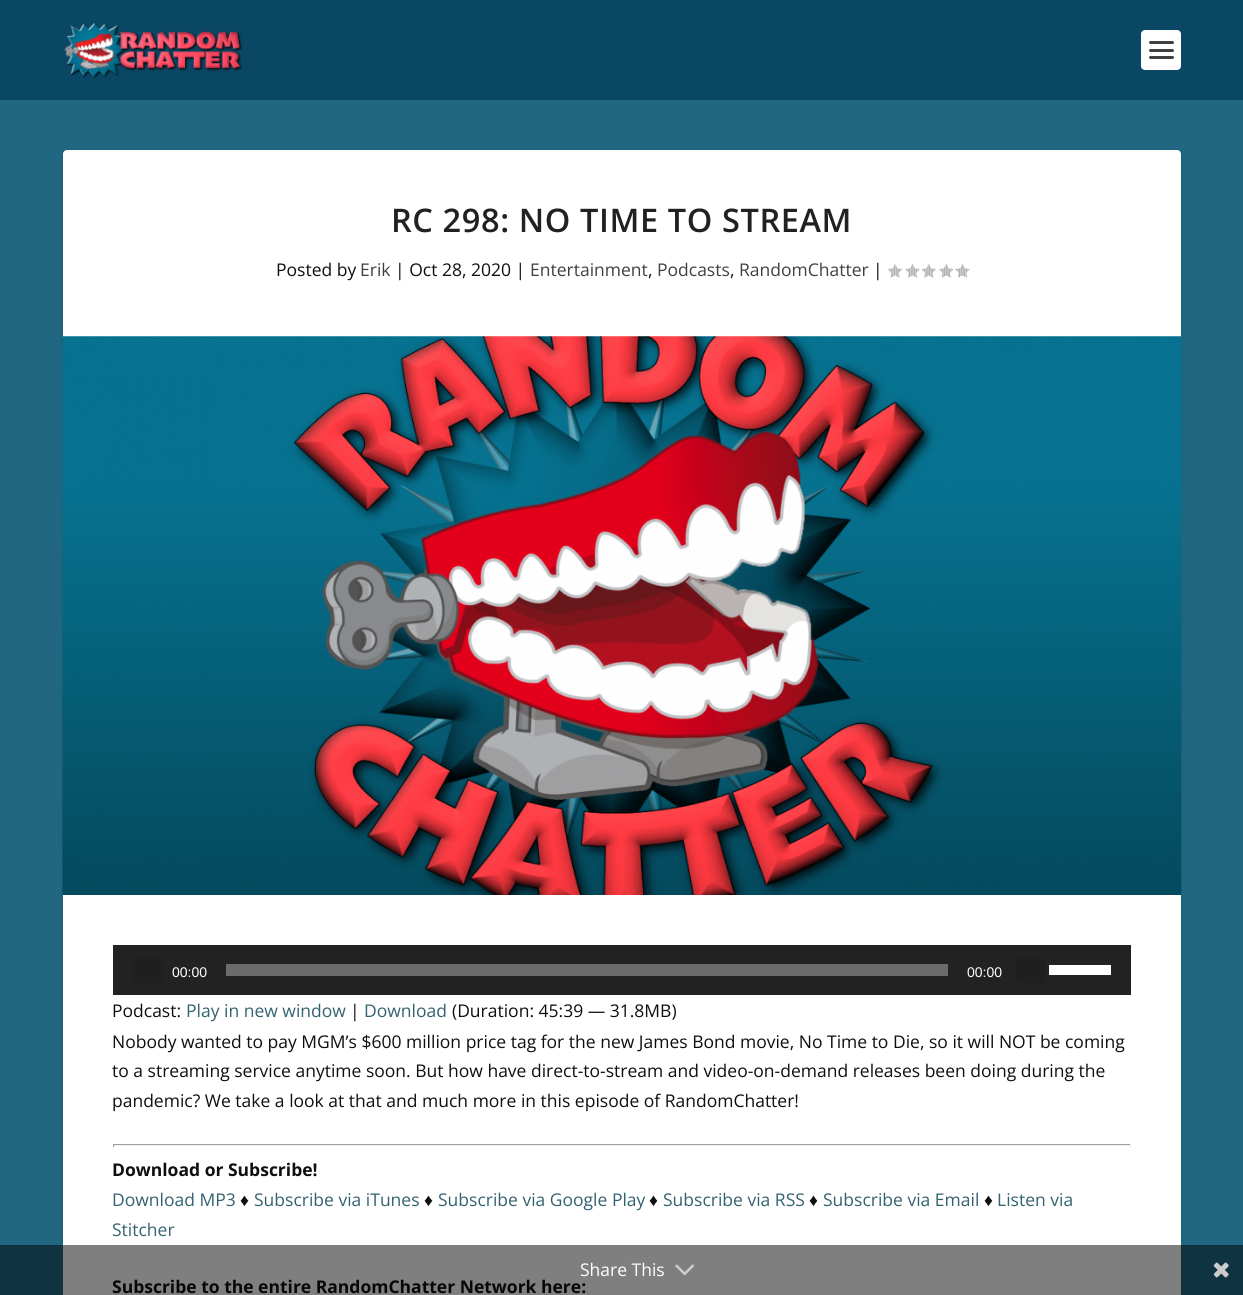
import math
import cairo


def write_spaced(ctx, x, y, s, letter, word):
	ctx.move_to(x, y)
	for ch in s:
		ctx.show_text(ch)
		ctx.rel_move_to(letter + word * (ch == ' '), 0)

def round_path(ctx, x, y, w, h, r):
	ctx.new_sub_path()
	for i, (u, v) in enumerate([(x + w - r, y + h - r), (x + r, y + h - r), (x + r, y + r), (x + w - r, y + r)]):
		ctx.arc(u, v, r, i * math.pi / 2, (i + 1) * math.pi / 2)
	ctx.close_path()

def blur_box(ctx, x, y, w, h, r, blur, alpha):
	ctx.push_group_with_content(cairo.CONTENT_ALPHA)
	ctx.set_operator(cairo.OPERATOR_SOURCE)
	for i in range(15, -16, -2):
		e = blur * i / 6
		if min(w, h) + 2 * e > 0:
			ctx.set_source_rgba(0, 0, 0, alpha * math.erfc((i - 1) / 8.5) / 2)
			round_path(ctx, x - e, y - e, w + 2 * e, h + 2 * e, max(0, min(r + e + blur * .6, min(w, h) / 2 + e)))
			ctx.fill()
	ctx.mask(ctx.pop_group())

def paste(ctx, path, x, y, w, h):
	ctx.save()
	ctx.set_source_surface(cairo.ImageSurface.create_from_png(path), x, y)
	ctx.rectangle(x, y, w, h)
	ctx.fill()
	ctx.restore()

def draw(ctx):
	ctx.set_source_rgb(0.129, 0.404, 0.51)
	ctx.paint()
	ctx.set_source_rgb(0.039, 0.278, 0.396)
	ctx.rectangle(0, 0, 1243, 100)
	ctx.fill()
	paste(ctx, 'media/1.png', 64, 22, 179, 56)
	ctx.set_source_rgb(1, 1, 1)
	round_path(ctx, 1141, 30, 40, 40, 4)
	ctx.fill()
	ctx.set_source_rgb(0.251, 0.251, 0.251)
	round_path(ctx, 1149, 41, 25, 3, 1.5)
	ctx.fill()
	round_path(ctx, 1149, 49, 25, 3, 1.5)
	ctx.fill()
	round_path(ctx, 1149, 56, 25, 3, 1.5)
	ctx.fill()
	ctx.set_source_rgb(0, 0, 0)
	blur_box(ctx, 63, 151, 1118, 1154, 4, 2, 0.1)
	ctx.set_source_rgb(1, 1, 1)
	round_path(ctx, 63, 150, 1118, 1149, 4)
	ctx.fill()
	ctx.select_font_face('Open Sans SemiBold')
	ctx.set_font_size(32.5)
	ctx.set_source_rgb(0.129, 0.129, 0.129)
	write_spaced(ctx, 391, 232, 'RC 298: NO TIME TO STREAM', 0.6, 0)
	ctx.select_font_face('Open Sans')
	ctx.set_font_size(17.5)
	ctx.set_source_rgb(0.059, 0.059, 0.059)
	ctx.move_to(276, 276)
	ctx.show_text('Posted by')
	ctx.set_source_rgb(0.251, 0.251, 0.251)
	ctx.move_to(360, 276)
	ctx.show_text('Erik')
	ctx.set_source_rgb(0.059, 0.059, 0.059)
	ctx.move_to(395, 276)
	ctx.show_text('| Oct 28, 2020 |')
	ctx.set_source_rgb(0.251, 0.251, 0.251)
	ctx.move_to(530, 276)
	ctx.show_text('Entertainment')
	ctx.set_source_rgb(0.059, 0.059, 0.059)
	ctx.move_to(648, 276)
	ctx.show_text(',')
	ctx.set_source_rgb(0.251, 0.251, 0.251)
	ctx.move_to(657, 276)
	ctx.show_text('Podcasts')
	ctx.set_source_rgb(0.059, 0.059, 0.059)
	ctx.move_to(730, 276)
	ctx.show_text(',')
	ctx.set_source_rgb(0.251, 0.251, 0.251)
	ctx.move_to(739, 276)
	ctx.show_text('RandomChatter')
	ctx.set_source_rgb(0.059, 0.059, 0.059)
	ctx.move_to(873, 276)
	ctx.show_text('|')
	paste(ctx, 'media/2.png', 887, 264, 16, 14)
	paste(ctx, 'media/3.png', 905, 264, 15, 14)
	paste(ctx, 'media/4.png', 921, 264, 15, 14)
	paste(ctx, 'media/5.png', 939, 264, 15, 14)
	paste(ctx, 'media/3.png', 955, 264, 15, 14)
	paste(ctx, 'media/6.png', 62, 336, 1120, 559)
	ctx.set_source_rgb(0.133, 0.133, 0.133)
	ctx.rectangle(113, 945, 1018, 50)
	ctx.fill()
	ctx.set_source_rgb(0.122, 0.122, 0.122)
	round_path(ctx, 133, 958, 30, 25, 4)
	ctx.fill()
	ctx.select_font_face('Liberation Sans')
	ctx.set_font_size(14)
	ctx.set_source_rgb(1, 1, 1)
	ctx.move_to(172, 977)
	ctx.show_text('00:00')
	ctx.set_source_rgb(0.42, 0.42, 0.42)
	ctx.rectangle(226, 964, 722, 12)
	ctx.fill()
	ctx.set_source_rgb(1, 1, 1)
	ctx.move_to(967, 977)
	ctx.show_text('00:00')
	ctx.set_source_rgb(0.122, 0.122, 0.122)
	round_path(ctx, 1016, 958, 30, 25, 4)
	ctx.fill()
	ctx.set_source_rgb(1, 1, 1)
	ctx.rectangle(1049, 965, 62, 10)
	ctx.fill()
	ctx.select_font_face('Open Sans')
	ctx.set_font_size(17.5)
	ctx.set_source_rgb(0.059, 0.059, 0.059)
	ctx.move_to(112, 1017)
	ctx.show_text('Podcast:')
	ctx.set_source_rgb(0.2, 0.384, 0.439)
	ctx.move_to(186, 1017)
	ctx.show_text('Play in new window')
	ctx.set_source_rgb(0.059, 0.059, 0.059)
	ctx.move_to(350, 1017)
	ctx.show_text('|')
	ctx.set_source_rgb(0.2, 0.384, 0.439)
	ctx.move_to(364, 1017)
	ctx.show_text('Download')
	ctx.set_source_rgb(0.059, 0.059, 0.059)
	for x, y, s in [
		(452, 1017, '(Duration: 45:39 — 31.8MB)'),
		(112, 1048, 'Nobody wanted to pay MGM’s $600 million price tag for the new James Bond movie, No Time to Die, so it will NOT be coming'),
		(112, 1077, 'to a streaming service anytime soon. But how have direct-to-stream and video-on-demand releases been doing during the'),
		(112, 1107, 'pandemic? We take a look at that and much more in this episode of RandomChatter!'),
	]:
		ctx.move_to(x, y)
		ctx.show_text(s)
	ctx.set_source_rgb(0.624, 0.624, 0.624)
	ctx.rectangle(113, 1144, 1018, 1)
	ctx.fill()
	ctx.set_source_rgb(0.933, 0.933, 0.933)
	ctx.rectangle(1130, 1144, 1, 3)
	ctx.rectangle(113, 1145, 1018, 1)
	ctx.fill()
	ctx.set_source_rgb(0.624, 0.624, 0.624)
	ctx.rectangle(113, 1144, 1, 3)
	ctx.fill()
	ctx.select_font_face('Open Sans', cairo.FONT_SLANT_NORMAL, cairo.FONT_WEIGHT_BOLD)
	ctx.set_source_rgb(0.059, 0.059, 0.059)
	ctx.move_to(112, 1176)
	ctx.show_text('Download or Subscribe!')
	ctx.select_font_face('Open Sans')
	ctx.set_source_rgb(0.2, 0.384, 0.439)
	ctx.move_to(112, 1206)
	ctx.show_text('Download MP3')
	ctx.select_font_face('Liberation Sans')
	ctx.set_source_rgb(0.059, 0.059, 0.059)
	ctx.move_to(240, 1206)
	ctx.show_text('♦')
	ctx.select_font_face('Open Sans')
	ctx.set_source_rgb(0.2, 0.384, 0.439)
	ctx.move_to(254, 1206)
	ctx.show_text('Subscribe via iTunes')
	ctx.select_font_face('Liberation Sans')
	ctx.set_source_rgb(0.059, 0.059, 0.059)
	ctx.move_to(424, 1206)
	ctx.show_text('♦')
	ctx.select_font_face('Open Sans')
	ctx.set_source_rgb(0.2, 0.384, 0.439)
	ctx.move_to(438, 1206)
	ctx.show_text('Subscribe via Google Play')
	ctx.select_font_face('Liberation Sans')
	ctx.set_source_rgb(0.059, 0.059, 0.059)
	ctx.move_to(649, 1206)
	ctx.show_text('♦')
	ctx.select_font_face('Open Sans')
	ctx.set_source_rgb(0.2, 0.384, 0.439)
	ctx.move_to(663, 1206)
	ctx.show_text('Subscribe via RSS')
	ctx.select_font_face('Liberation Sans')
	ctx.set_source_rgb(0.059, 0.059, 0.059)
	ctx.move_to(809, 1206)
	ctx.show_text('♦')
	ctx.select_font_face('Open Sans')
	ctx.set_source_rgb(0.2, 0.384, 0.439)
	ctx.move_to(823, 1206)
	ctx.show_text('Subscribe via Email')
	ctx.select_font_face('Liberation Sans')
	ctx.set_source_rgb(0.059, 0.059, 0.059)
	ctx.move_to(984, 1206)
	ctx.show_text('♦')
	ctx.select_font_face('Open Sans')
	ctx.set_source_rgb(0.2, 0.384, 0.439)
	ctx.move_to(997, 1206)
	ctx.show_text('Listen via')
	ctx.move_to(112, 1236)
	ctx.show_text('Stitcher')
	ctx.select_font_face('Open Sans', cairo.FONT_SLANT_NORMAL, cairo.FONT_WEIGHT_BOLD)
	ctx.set_source_rgb(0.059, 0.059, 0.059)
	ctx.move_to(112, 1293)
	ctx.show_text('Subscribe to the entire RandomChatter Network here:')
	ctx.set_source_rgba(0, 0, 0, 0.5)
	ctx.rectangle(0, 1245, 1243, 50)
	ctx.fill()
	ctx.select_font_face('Open Sans')
	ctx.set_source_rgb(1, 1, 1)
	ctx.move_to(580, 1276)
	ctx.show_text('Share This')
	paste(ctx, 'media/7.png', 675, 1264, 19, 12)
	paste(ctx, 'media/8.png', 1213, 1262, 16, 16)


surface = cairo.ImageSurface(cairo.FORMAT_RGB24, 1243, 1295)
ctx = cairo.Context(surface)
options = cairo.FontOptions()
options.set_hint_metrics(cairo.HINT_METRICS_OFF)
options.set_hint_style(cairo.HINT_STYLE_NONE)
ctx.set_font_options(options)
ctx.set_miter_limit(4)
draw(ctx)
surface.write_to_png('image.png')
